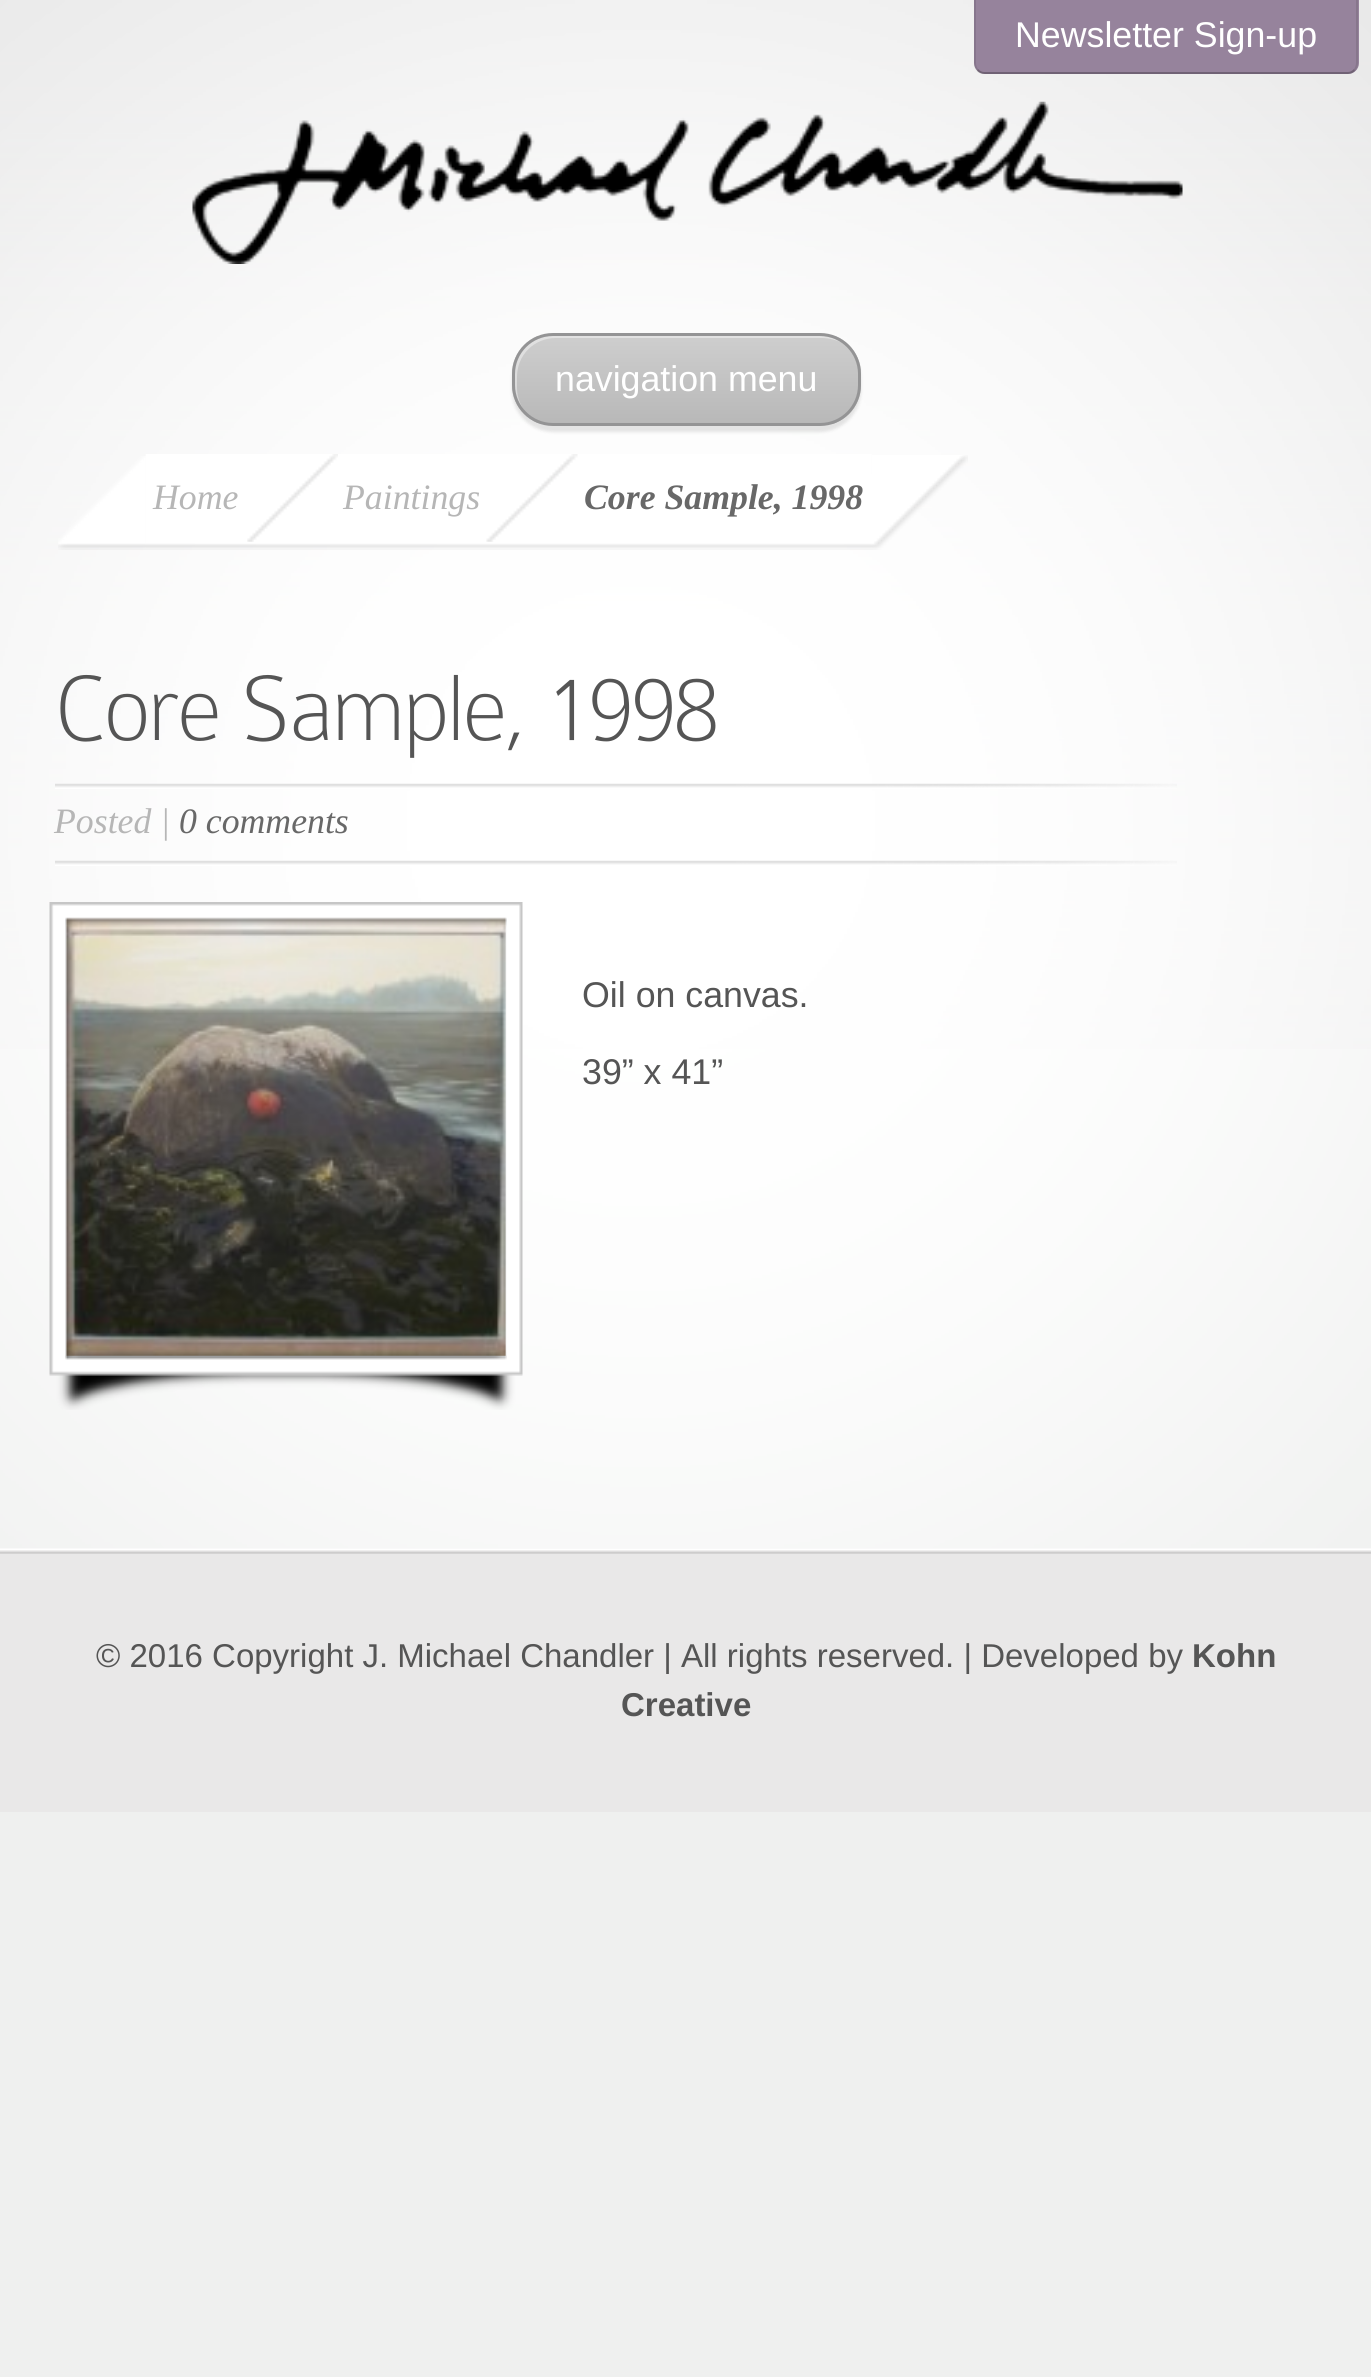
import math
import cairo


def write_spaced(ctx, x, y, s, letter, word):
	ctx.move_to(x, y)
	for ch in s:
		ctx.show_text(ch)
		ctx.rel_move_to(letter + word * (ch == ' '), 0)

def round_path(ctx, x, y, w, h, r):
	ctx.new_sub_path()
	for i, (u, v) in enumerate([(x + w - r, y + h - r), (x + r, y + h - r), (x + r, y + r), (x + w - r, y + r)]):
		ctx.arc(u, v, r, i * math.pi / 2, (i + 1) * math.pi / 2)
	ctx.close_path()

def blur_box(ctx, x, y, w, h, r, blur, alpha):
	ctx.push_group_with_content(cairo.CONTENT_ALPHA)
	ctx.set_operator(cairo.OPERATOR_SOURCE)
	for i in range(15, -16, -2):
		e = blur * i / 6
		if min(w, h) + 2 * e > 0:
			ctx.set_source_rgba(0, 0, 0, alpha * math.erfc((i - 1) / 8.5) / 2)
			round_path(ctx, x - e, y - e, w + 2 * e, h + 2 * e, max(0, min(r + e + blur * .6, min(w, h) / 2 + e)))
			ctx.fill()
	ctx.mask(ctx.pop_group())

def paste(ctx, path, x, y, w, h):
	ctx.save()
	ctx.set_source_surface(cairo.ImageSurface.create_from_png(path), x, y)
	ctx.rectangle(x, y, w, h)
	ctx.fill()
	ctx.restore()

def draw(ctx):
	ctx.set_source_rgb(0.937, 0.941, 0.937)
	ctx.paint()
	paste(ctx, 'media/1.png', 0, 0, 1371, 1049)
	paste(ctx, 'media/2.png', 0, 0, 1371, 1548)
	ctx.set_source_rgb(0.588, 0.514, 0.612)
	ctx.new_path()
	ctx.move_to(974, 0)
	ctx.line_to(1359, 0)
	ctx.line_to(1359, 63)
	ctx.curve_to(1359, 69, 1354, 74, 1348, 74)
	ctx.line_to(985, 74)
	ctx.curve_to(979, 74, 974, 69, 974, 63)
	ctx.close_path()
	ctx.fill()
	ctx.set_source_rgb(0.529, 0.463, 0.549)
	ctx.new_path()
	ctx.move_to(1358, 0)
	ctx.line_to(1356, 0)
	ctx.line_to(1356, 63)
	ctx.curve_to(1356, 65, 1355, 68, 1354, 69)
	ctx.line_to(1355, 71)
	ctx.curve_to(1357, 69, 1358, 66, 1358, 63)
	ctx.close_path()
	ctx.fill()
	ctx.set_source_rgba(0, 0, 0, 0.25)
	ctx.new_path()
	ctx.move_to(1355, 71)
	ctx.curve_to(1353, 73, 1351, 74, 1348, 74)
	ctx.line_to(984, 74)
	ctx.curve_to(981, 74, 979, 73, 977, 71)
	ctx.line_to(978, 69)
	ctx.curve_to(980, 71, 982, 72, 984, 72)
	ctx.line_to(1348, 72)
	ctx.curve_to(1350, 72, 1352, 71, 1354, 69)
	ctx.close_path()
	ctx.fill()
	ctx.set_source_rgba(0, 0, 0, 0.1)
	ctx.new_path()
	ctx.move_to(974, 0)
	ctx.line_to(976, 0)
	ctx.line_to(976, 63)
	ctx.curve_to(976, 65, 977, 68, 978, 69)
	ctx.line_to(977, 71)
	ctx.curve_to(975, 69, 974, 66, 974, 63)
	ctx.close_path()
	ctx.fill()
	ctx.select_font_face('Liberation Sans')
	ctx.set_font_size(35.75)
	ctx.set_source_rgb(1, 1, 1)
	ctx.move_to(1015, 47)
	ctx.show_text('Newsletter Sign-up')
	paste(ctx, 'media/3.png', 192, 101, 991, 163)
	ctx.set_source_rgb(0, 0, 0)
	blur_box(ctx, 512, 338, 349, 94, 41, 1.5, 0.1)
	ctx.save()
	round_path(ctx, 512, 333, 349, 93, 41)
	ctx.clip()
	gradient = cairo.LinearGradient(686, 336, 686, 424)
	gradient.add_color_stop_rgba(0, 0.808, 0.808, 0.808, 1)
	gradient.add_color_stop_rgba(1, 0.722, 0.722, 0.722, 1)
	ctx.set_source(gradient)
	ctx.rectangle(512, 336, 349, 88)
	ctx.fill()
	ctx.restore()
	ctx.set_source_rgba(1, 1, 1, 0.4)
	ctx.new_path()
	ctx.move_to(556, 338)
	ctx.line_to(822, 338)
	ctx.curve_to(829, 338, 835, 340, 841, 342)
	ctx.curve_to(834, 338, 827, 336, 819, 336)
	ctx.line_to(553, 336)
	ctx.curve_to(531, 336, 514, 353, 514, 375)
	ctx.line_to(514, 385)
	ctx.curve_to(514, 398, 520, 409, 530, 417)
	ctx.curve_to(522, 410, 517, 399, 517, 388)
	ctx.line_to(517, 377)
	ctx.curve_to(517, 355, 534, 338, 556, 338)
	ctx.close_path()
	ctx.fill()
	round_path(ctx, 513.5, 334.5, 346, 90, 39.5)
	ctx.set_source_rgb(0.58, 0.58, 0.584)
	ctx.set_line_width(3)
	ctx.stroke()
	ctx.set_source_rgb(1, 1, 1)
	ctx.move_to(555, 391)
	ctx.show_text('navigation menu')
	paste(ctx, 'media/4.png', 58, 456, 88, 94)
	paste(ctx, 'media/5.png', 145, 454, 727, 96)
	ctx.select_font_face('Liberation Serif', cairo.FONT_SLANT_ITALIC)
	ctx.set_source_rgb(0.714, 0.714, 0.714)
	ctx.move_to(153, 509)
	ctx.show_text('Home')
	paste(ctx, 'media/6.png', 247, 454, 91, 88)
	ctx.move_to(343, 509)
	ctx.show_text('Paintings')
	paste(ctx, 'media/7.png', 486, 454, 92, 88)
	ctx.select_font_face('Liberation Serif', cairo.FONT_SLANT_ITALIC, cairo.FONT_WEIGHT_BOLD)
	ctx.set_source_rgb(0.408, 0.408, 0.408)
	ctx.move_to(584, 509)
	ctx.show_text('Core Sample, 1998')
	paste(ctx, 'media/8.png', 871, 455, 97, 95)
	ctx.select_font_face('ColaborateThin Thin')
	ctx.set_font_size(99)
	ctx.set_source_rgb(0.333, 0.333, 0.333)
	write_spaced(ctx, 54, 740, 'Core Sample, 1998', -2.75, 0)
	paste(ctx, 'media/9.png', 55, 783, 1122, 6)
	paste(ctx, 'media/10.png', 55, 860, 1122, 6)
	ctx.select_font_face('Liberation Serif', cairo.FONT_SLANT_ITALIC)
	ctx.set_font_size(35.75)
	ctx.set_source_rgb(0.714, 0.714, 0.714)
	ctx.move_to(54, 833)
	ctx.show_text('Posted |')
	ctx.set_source_rgb(0.408, 0.408, 0.408)
	ctx.move_to(179, 833)
	ctx.show_text('0 comments')
	paste(ctx, 'media/12.png', 66, 917, 440, 439)
	paste(ctx, 'media/11.png', 49, 902, 474, 508)
	ctx.select_font_face('Liberation Sans')
	ctx.set_source_rgb(0.333, 0.333, 0.333)
	ctx.move_to(582, 1007)
	ctx.show_text('Oil on canvas.')
	ctx.move_to(582, 1084)
	ctx.show_text('39” x 41”')
	ctx.set_source_rgb(0.914, 0.91, 0.91)
	ctx.rectangle(0, 1548, 1371, 264)
	ctx.fill()
	paste(ctx, 'media/13.png', 0, 1548, 1371, 6)
	ctx.set_font_size(33)
	ctx.set_source_rgb(0.333, 0.333, 0.333)
	ctx.move_to(96, 1667)
	ctx.show_text('© 2016 Copyright J. Michael Chandler | All rights reserved. | Developed by')
	ctx.select_font_face('Liberation Sans', cairo.FONT_SLANT_NORMAL, cairo.FONT_WEIGHT_BOLD)
	ctx.move_to(1192, 1667)
	ctx.show_text('Kohn')
	ctx.move_to(621, 1716)
	ctx.show_text('Creative')


surface = cairo.ImageSurface(cairo.FORMAT_RGB24, 1371, 2377)
ctx = cairo.Context(surface)
options = cairo.FontOptions()
options.set_hint_metrics(cairo.HINT_METRICS_OFF)
options.set_hint_style(cairo.HINT_STYLE_NONE)
ctx.set_font_options(options)
ctx.set_miter_limit(4)
draw(ctx)
surface.write_to_png('image.png')
